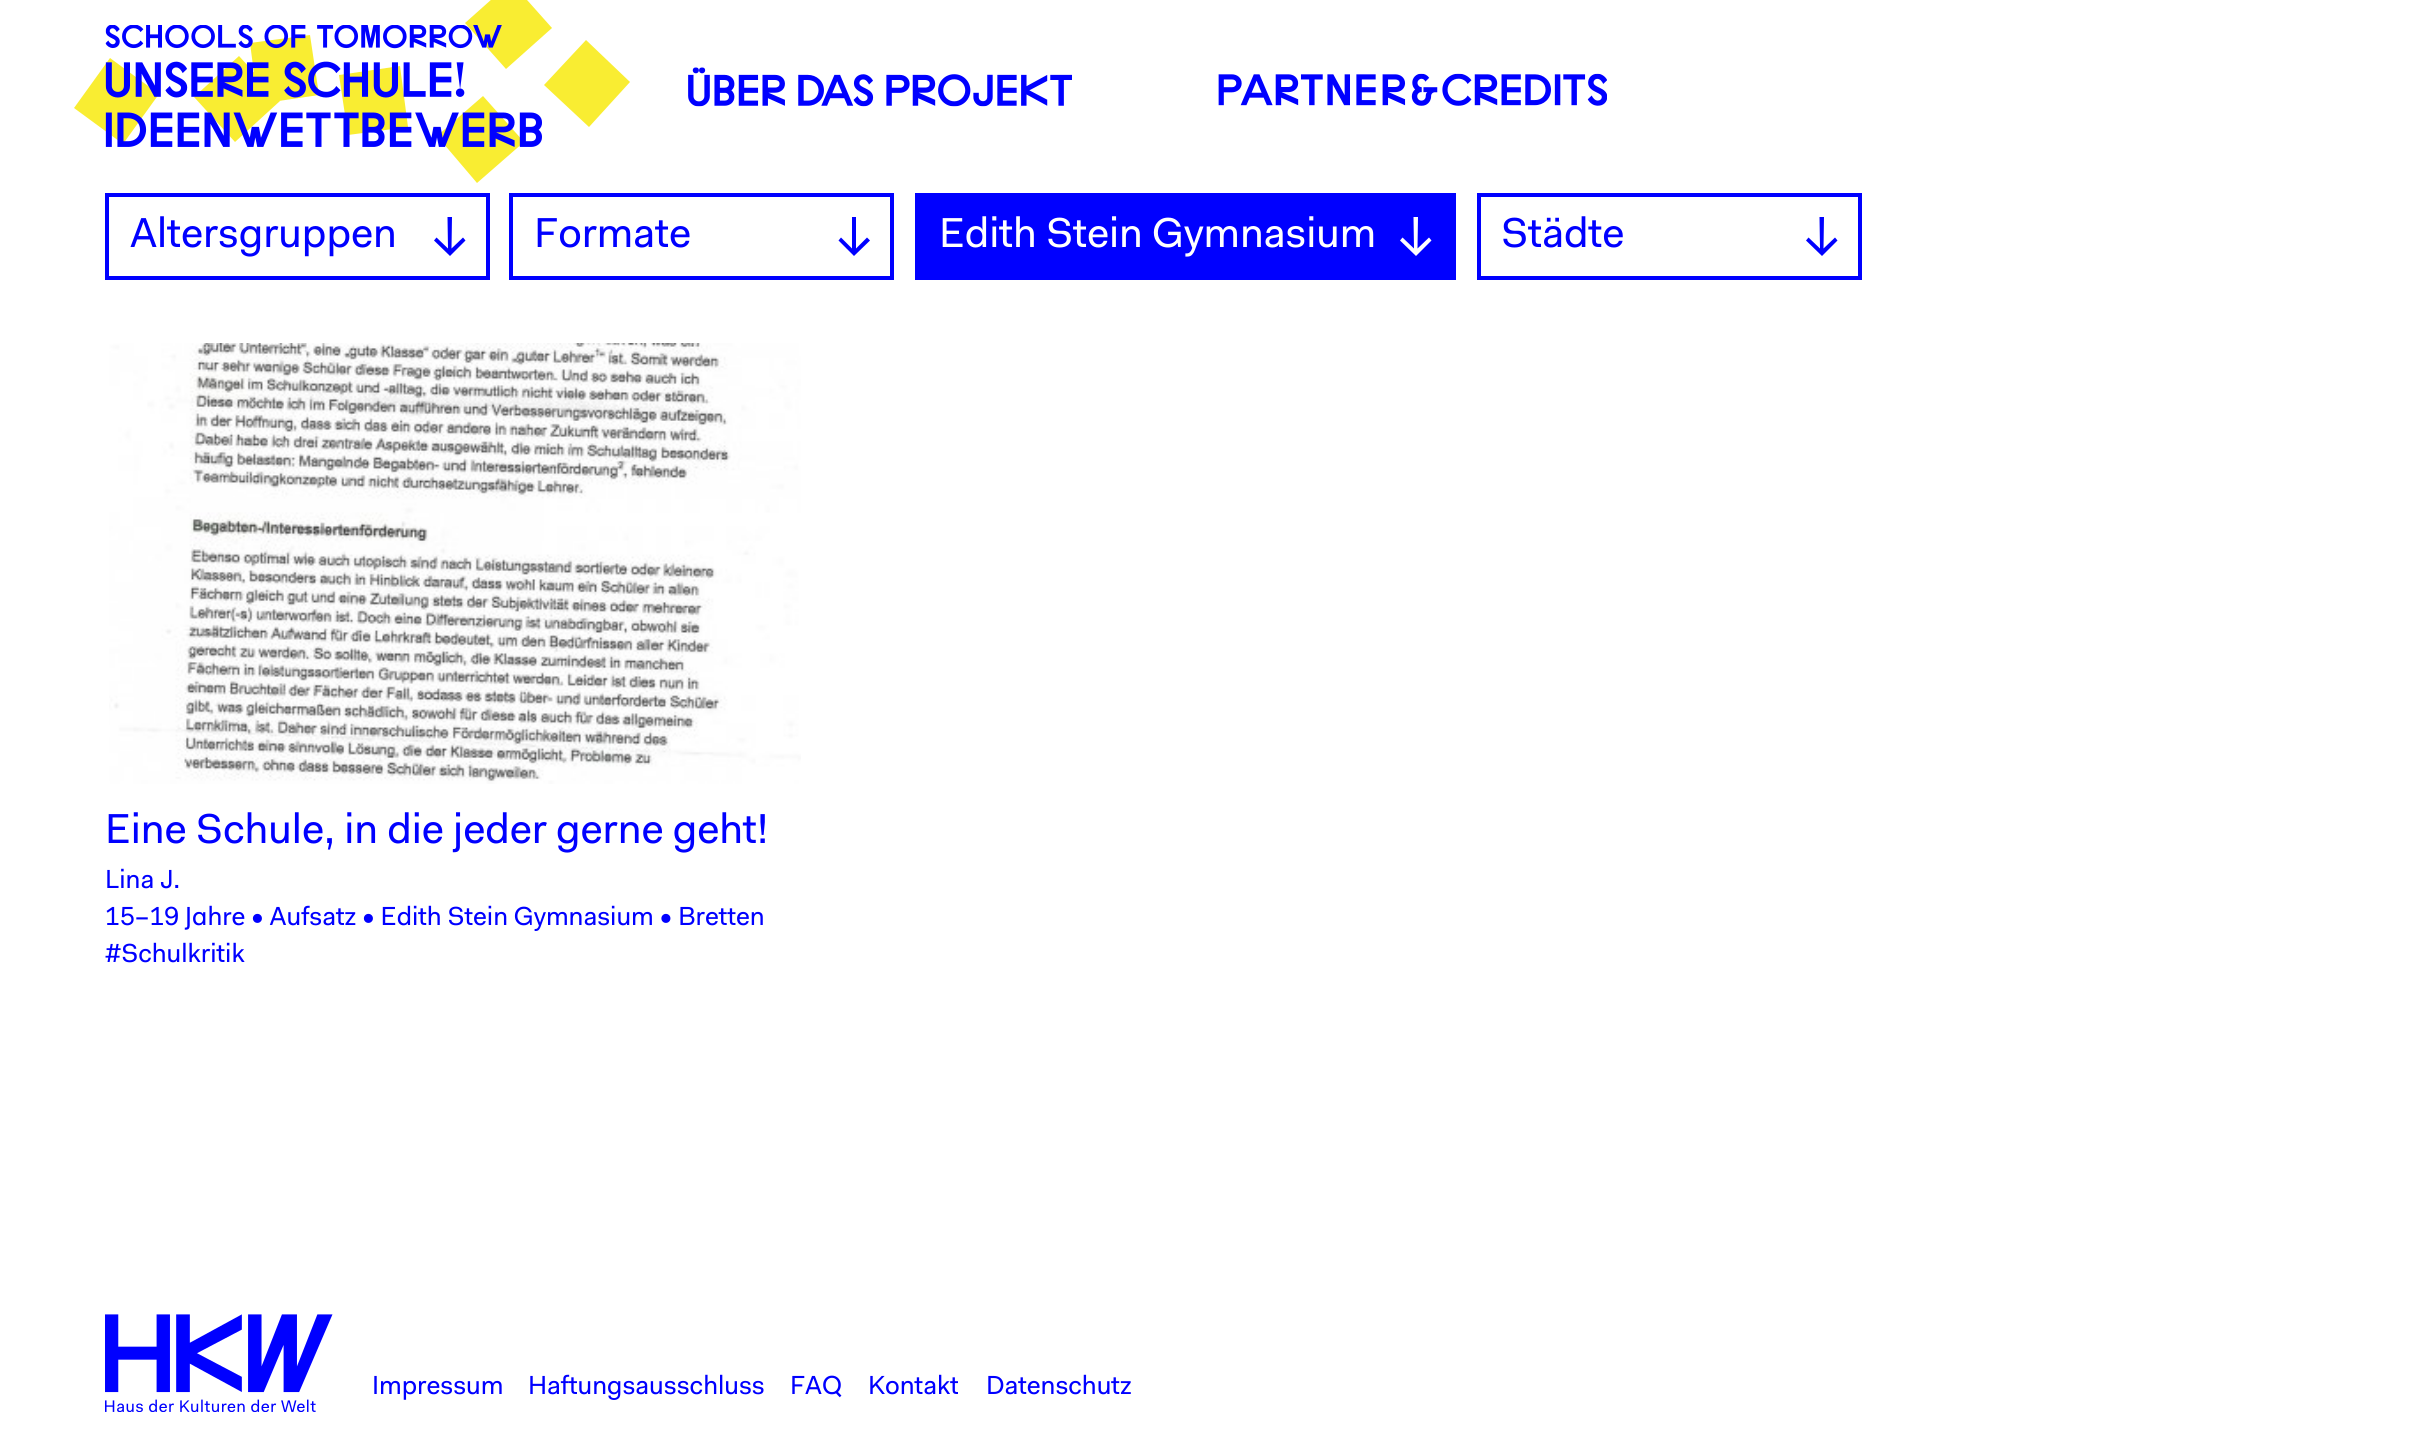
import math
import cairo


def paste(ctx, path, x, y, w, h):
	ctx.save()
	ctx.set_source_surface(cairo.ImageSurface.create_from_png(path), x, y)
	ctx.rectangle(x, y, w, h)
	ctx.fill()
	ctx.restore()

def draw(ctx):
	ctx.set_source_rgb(1, 1, 1)
	ctx.paint()
	ctx.set_source_rgb(0.976, 0.929, 0.196)
	ctx.new_path()
	ctx.move_to(511, -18)
	ctx.line_to(552, 28)
	ctx.line_to(506, 69)
	ctx.line_to(465, 23)
	ctx.close_path()
	ctx.fill()
	ctx.new_path()
	ctx.move_to(159, 94)
	ctx.line_to(123, 144)
	ctx.line_to(74, 108)
	ctx.line_to(110, 58)
	ctx.close_path()
	ctx.fill()
	ctx.new_path()
	ctx.move_to(280, 101)
	ctx.line_to(235, 142)
	ctx.line_to(194, 97)
	ctx.line_to(239, 56)
	ctx.close_path()
	ctx.fill()
	ctx.new_path()
	ctx.move_to(258, 104)
	ctx.line_to(250, 43)
	ctx.line_to(310, 35)
	ctx.line_to(319, 95)
	ctx.close_path()
	ctx.fill()
	ctx.new_path()
	ctx.move_to(348, 135)
	ctx.line_to(339, 75)
	ctx.line_to(400, 66)
	ctx.line_to(408, 127)
	ctx.close_path()
	ctx.fill()
	ctx.new_path()
	ctx.move_to(477, 183)
	ctx.line_to(437, 136)
	ctx.line_to(483, 96)
	ctx.line_to(524, 142)
	ctx.close_path()
	ctx.fill()
	paste(ctx, 'media/1.png', 105, 25, 437, 122)
	ctx.new_path()
	ctx.move_to(544, 85)
	ctx.line_to(586, 40)
	ctx.line_to(630, 82)
	ctx.line_to(589, 127)
	ctx.close_path()
	ctx.fill()
	paste(ctx, 'media/2.png', 688, 67, 384, 40)
	paste(ctx, 'media/3.png', 1218, 73, 389, 33)
	ctx.rectangle(107, 195, 381, 83)
	ctx.set_source_rgb(0, 0, 1)
	ctx.set_line_width(4)
	ctx.stroke()
	ctx.new_path()
	ctx.move_to(463, 237.5)
	ctx.line_to(451.5, 248.5)
	ctx.line_to(452, 217)
	ctx.line_to(447.5, 217)
	ctx.line_to(448, 248.5)
	ctx.line_to(436.5, 237.5)
	ctx.line_to(434, 240.5)
	ctx.line_to(450, 256)
	ctx.line_to(465.5, 240.5)
	ctx.close_path()
	ctx.fill()
	ctx.select_font_face('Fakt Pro')
	ctx.set_font_size(42)
	ctx.move_to(130, 247)
	ctx.show_text('Altersgruppen')
	ctx.rectangle(511, 195, 381, 83)
	ctx.stroke()
	ctx.new_path()
	ctx.move_to(867, 237.5)
	ctx.line_to(856, 248.5)
	ctx.line_to(856, 217)
	ctx.line_to(852, 217)
	ctx.line_to(852, 248.5)
	ctx.line_to(841, 237.5)
	ctx.line_to(838.5, 240.5)
	ctx.line_to(854, 256)
	ctx.line_to(870, 240.5)
	ctx.close_path()
	ctx.fill()
	ctx.move_to(534, 247)
	ctx.show_text('Formate')
	ctx.rectangle(917, 195, 537, 83)
	ctx.stroke()
	ctx.rectangle(919, 197, 533, 79)
	ctx.fill()
	ctx.set_source_rgb(1, 1, 1)
	ctx.new_path()
	ctx.move_to(1429, 237.5)
	ctx.line_to(1417.5, 248.5)
	ctx.line_to(1418, 217)
	ctx.line_to(1413.5, 217)
	ctx.line_to(1414, 248.5)
	ctx.line_to(1402.5, 237.5)
	ctx.line_to(1400, 240.5)
	ctx.line_to(1416, 256)
	ctx.line_to(1431.5, 240.5)
	ctx.close_path()
	ctx.fill()
	ctx.move_to(939, 247)
	ctx.show_text('Edith Stein Gymnasium')
	ctx.rectangle(1479, 195, 381, 83)
	ctx.set_source_rgb(0, 0, 1)
	ctx.stroke()
	ctx.new_path()
	ctx.move_to(1835, 237.5)
	ctx.line_to(1823.5, 248.5)
	ctx.line_to(1824, 217)
	ctx.line_to(1819.5, 217)
	ctx.line_to(1820, 248.5)
	ctx.line_to(1808.5, 237.5)
	ctx.line_to(1806, 240.5)
	ctx.line_to(1822, 256)
	ctx.line_to(1837.5, 240.5)
	ctx.close_path()
	ctx.fill()
	ctx.move_to(1501, 247)
	ctx.show_text('Städte')
	paste(ctx, 'media/4.png', 109, 343, 692, 441)
	ctx.move_to(105, 843)
	ctx.show_text('Eine Schule, in die jeder gerne geht!')
	ctx.set_font_size(26.25)
	ctx.move_to(105, 888)
	ctx.show_text('Lina J.')
	ctx.select_font_face('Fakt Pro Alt')
	ctx.move_to(105, 925)
	ctx.show_text('15–19 Jahre')
	ctx.select_font_face('Fakt Pro')
	ctx.move_to(251, 925)
	ctx.show_text('• Aufsatz • Edith Stein Gymnasium • Bretten')
	ctx.move_to(105, 962)
	ctx.show_text('#Schulkritik')
	paste(ctx, 'media/5.png', 105, 1314, 228, 98)
	for x, y, s in [
		(372, 1394, 'Impressum'),
		(528, 1394, 'Haftungsausschluss'),
		(790, 1394, 'FAQ'),
		(868, 1394, 'Kontakt'),
		(986, 1394, 'Datenschutz'),
	]:
		ctx.move_to(x, y)
		ctx.show_text(s)


surface = cairo.ImageSurface(cairo.FORMAT_RGB24, 2422, 1445)
ctx = cairo.Context(surface)
options = cairo.FontOptions()
options.set_hint_metrics(cairo.HINT_METRICS_OFF)
options.set_hint_style(cairo.HINT_STYLE_NONE)
ctx.set_font_options(options)
ctx.set_miter_limit(4)
draw(ctx)
surface.write_to_png('image.png')
